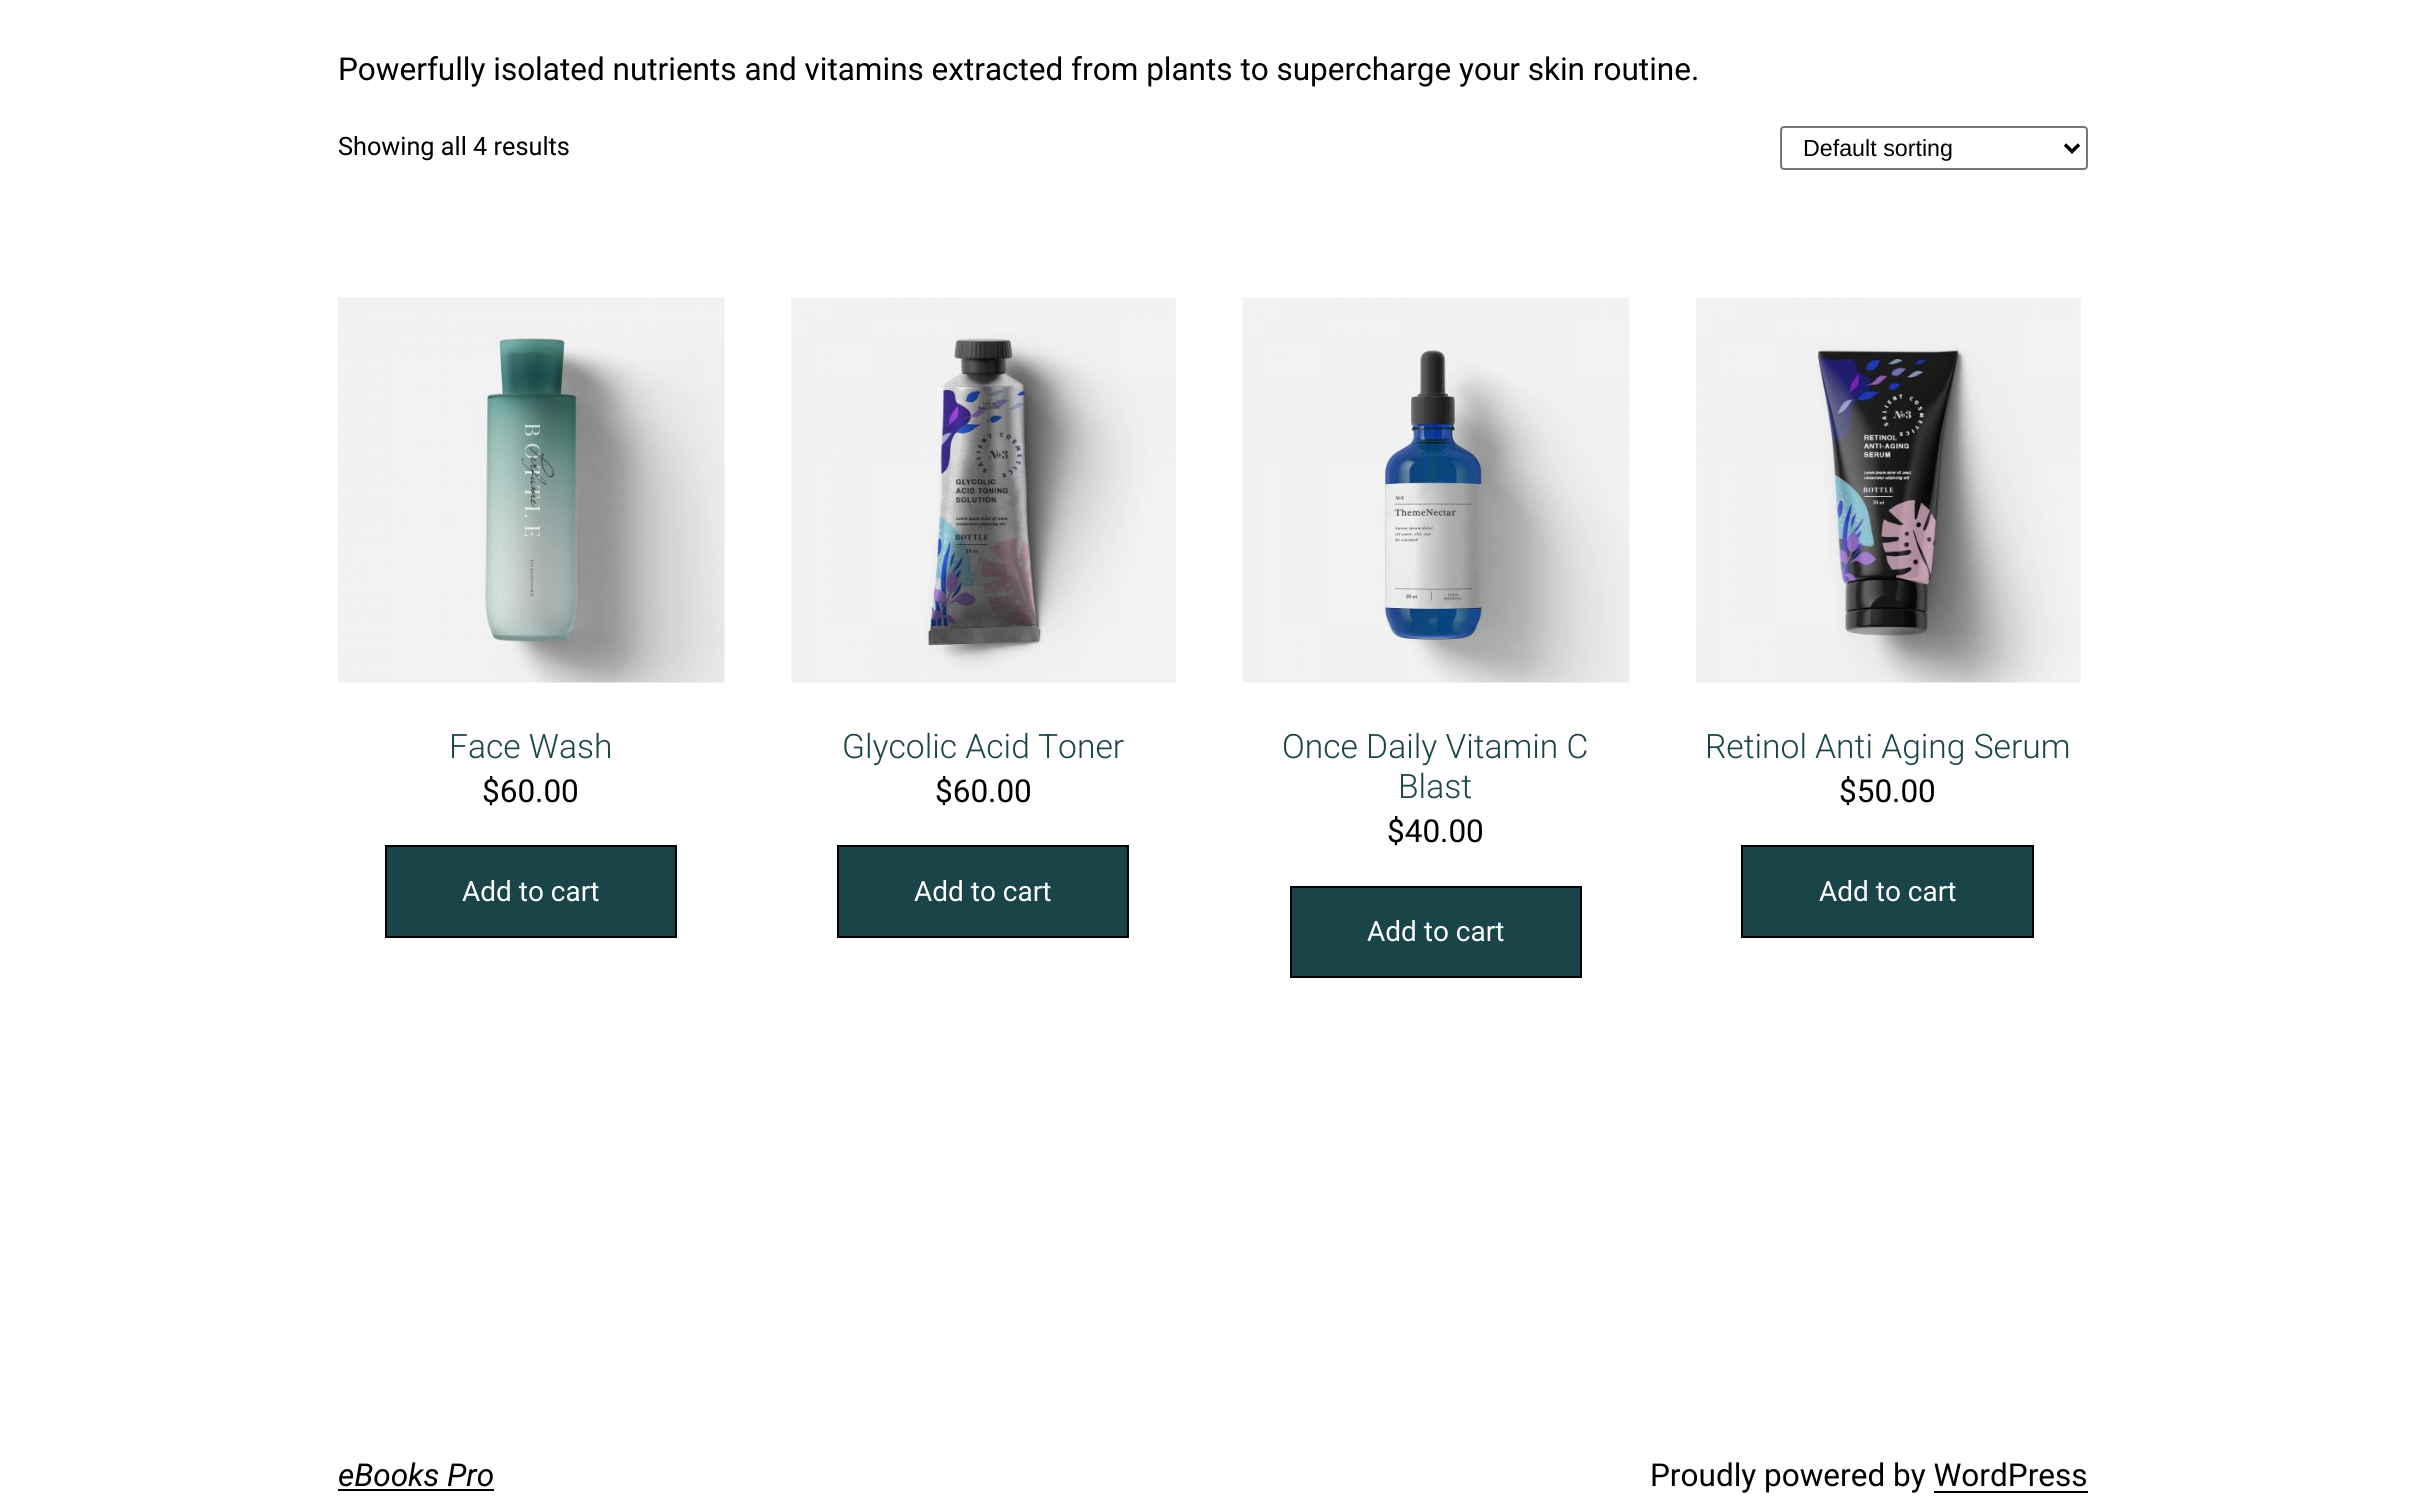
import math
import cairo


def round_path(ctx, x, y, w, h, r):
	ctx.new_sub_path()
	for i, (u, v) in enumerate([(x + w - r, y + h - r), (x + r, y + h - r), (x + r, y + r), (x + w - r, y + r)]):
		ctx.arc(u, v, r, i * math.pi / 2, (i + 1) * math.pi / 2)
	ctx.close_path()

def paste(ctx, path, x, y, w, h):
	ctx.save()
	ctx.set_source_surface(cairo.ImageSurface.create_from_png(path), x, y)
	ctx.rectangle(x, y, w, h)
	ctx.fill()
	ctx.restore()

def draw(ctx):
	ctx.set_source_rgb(1, 1, 1)
	ctx.paint()
	ctx.select_font_face('Roboto')
	ctx.set_font_size(31.5)
	ctx.set_source_rgb(0, 0, 0)
	ctx.move_to(338, 80)
	ctx.show_text('Powerfully isolated nutrients and vitamins extracted from plants to supercharge your skin routine.')
	ctx.set_font_size(25.25)
	ctx.move_to(338, 155)
	ctx.show_text('Showing all 4 results')
	round_path(ctx, 1781, 127, 306, 42, 3)
	ctx.set_source_rgb(0.463, 0.463, 0.463)
	ctx.stroke()
	ctx.new_path()
	ctx.move_to(2065, 144.5)
	ctx.line_to(2072, 151.5)
	ctx.line_to(2079, 144.5)
	ctx.set_source_rgb(0, 0, 0)
	ctx.set_line_width(3.5)
	ctx.stroke()
	ctx.select_font_face('Liberation Sans')
	ctx.set_font_size(23.25)
	ctx.move_to(1803, 156)
	ctx.show_text('Default sorting')
	paste(ctx, 'media/1.png', 338, 297, 387, 386)
	ctx.select_font_face('Roboto Light')
	ctx.set_font_size(33.6)
	ctx.set_source_rgb(0.102, 0.271, 0.282)
	ctx.move_to(449, 758)
	ctx.show_text('Face Wash')
	ctx.select_font_face('Roboto')
	ctx.set_font_size(31.5)
	ctx.set_source_rgb(0, 0, 0)
	ctx.move_to(482, 802)
	ctx.show_text('$60.00')
	ctx.set_source_rgb(0.102, 0.271, 0.282)
	ctx.rectangle(386, 846, 290, 91)
	ctx.fill_preserve()
	ctx.set_source_rgb(0, 0, 0)
	ctx.set_line_width(2)
	ctx.stroke()
	ctx.set_font_size(28)
	ctx.set_source_rgb(1, 1, 1)
	ctx.move_to(462, 901)
	ctx.show_text('Add to cart')
	paste(ctx, 'media/2.png', 791, 297, 385, 386)
	ctx.select_font_face('Roboto Light')
	ctx.set_font_size(33.6)
	ctx.set_source_rgb(0.102, 0.271, 0.282)
	ctx.move_to(842, 758)
	ctx.show_text('Glycolic Acid Toner')
	ctx.select_font_face('Roboto')
	ctx.set_font_size(31.5)
	ctx.set_source_rgb(0, 0, 0)
	ctx.move_to(935, 802)
	ctx.show_text('$60.00')
	ctx.set_source_rgb(0.102, 0.271, 0.282)
	ctx.rectangle(838, 846, 290, 91)
	ctx.fill_preserve()
	ctx.set_source_rgb(0, 0, 0)
	ctx.stroke()
	ctx.set_font_size(28)
	ctx.set_source_rgb(1, 1, 1)
	ctx.move_to(914, 901)
	ctx.show_text('Add to cart')
	paste(ctx, 'media/3.png', 1242, 297, 388, 386)
	ctx.select_font_face('Roboto Light')
	ctx.set_font_size(33.6)
	ctx.set_source_rgb(0.102, 0.271, 0.282)
	ctx.move_to(1282, 758)
	ctx.show_text('Once Daily Vitamin C')
	ctx.move_to(1398, 798)
	ctx.show_text('Blast')
	ctx.select_font_face('Roboto')
	ctx.set_font_size(31.5)
	ctx.set_source_rgb(0, 0, 0)
	ctx.move_to(1387, 842)
	ctx.show_text('$40.00')
	ctx.set_source_rgb(0.102, 0.271, 0.282)
	ctx.rectangle(1291, 887, 290, 90)
	ctx.fill_preserve()
	ctx.set_source_rgb(0, 0, 0)
	ctx.stroke()
	ctx.set_font_size(28)
	ctx.set_source_rgb(1, 1, 1)
	ctx.move_to(1367, 941)
	ctx.show_text('Add to cart')
	paste(ctx, 'media/4.png', 1696, 297, 385, 386)
	ctx.select_font_face('Roboto Light')
	ctx.set_font_size(33.6)
	ctx.set_source_rgb(0.102, 0.271, 0.282)
	ctx.move_to(1705, 758)
	ctx.show_text('Retinol Anti Aging Serum')
	ctx.select_font_face('Roboto')
	ctx.set_font_size(31.5)
	ctx.set_source_rgb(0, 0, 0)
	ctx.move_to(1839, 802)
	ctx.show_text('$50.00')
	ctx.set_source_rgb(0.102, 0.271, 0.282)
	ctx.rectangle(1742, 846, 291, 91)
	ctx.fill_preserve()
	ctx.set_source_rgb(0, 0, 0)
	ctx.stroke()
	ctx.set_font_size(28)
	ctx.set_source_rgb(1, 1, 1)
	ctx.move_to(1819, 901)
	ctx.show_text('Add to cart')
	ctx.select_font_face('Roboto', cairo.FONT_SLANT_ITALIC)
	ctx.set_font_size(31.5)
	ctx.set_source_rgb(0, 0, 0)
	ctx.move_to(338, 1486)
	ctx.show_text('eBooks Pro')
	ctx.rectangle(338, 1489, 156, 2)
	ctx.fill()
	ctx.select_font_face('Roboto')
	ctx.move_to(1650, 1486)
	ctx.show_text('Proudly powered by WordPress')
	ctx.rectangle(1934, 1491, 154, 2)
	ctx.fill()


surface = cairo.ImageSurface(cairo.FORMAT_RGB24, 2424, 1498)
ctx = cairo.Context(surface)
options = cairo.FontOptions()
options.set_hint_metrics(cairo.HINT_METRICS_OFF)
options.set_hint_style(cairo.HINT_STYLE_NONE)
ctx.set_font_options(options)
ctx.set_miter_limit(4)
draw(ctx)
surface.write_to_png('image.png')
